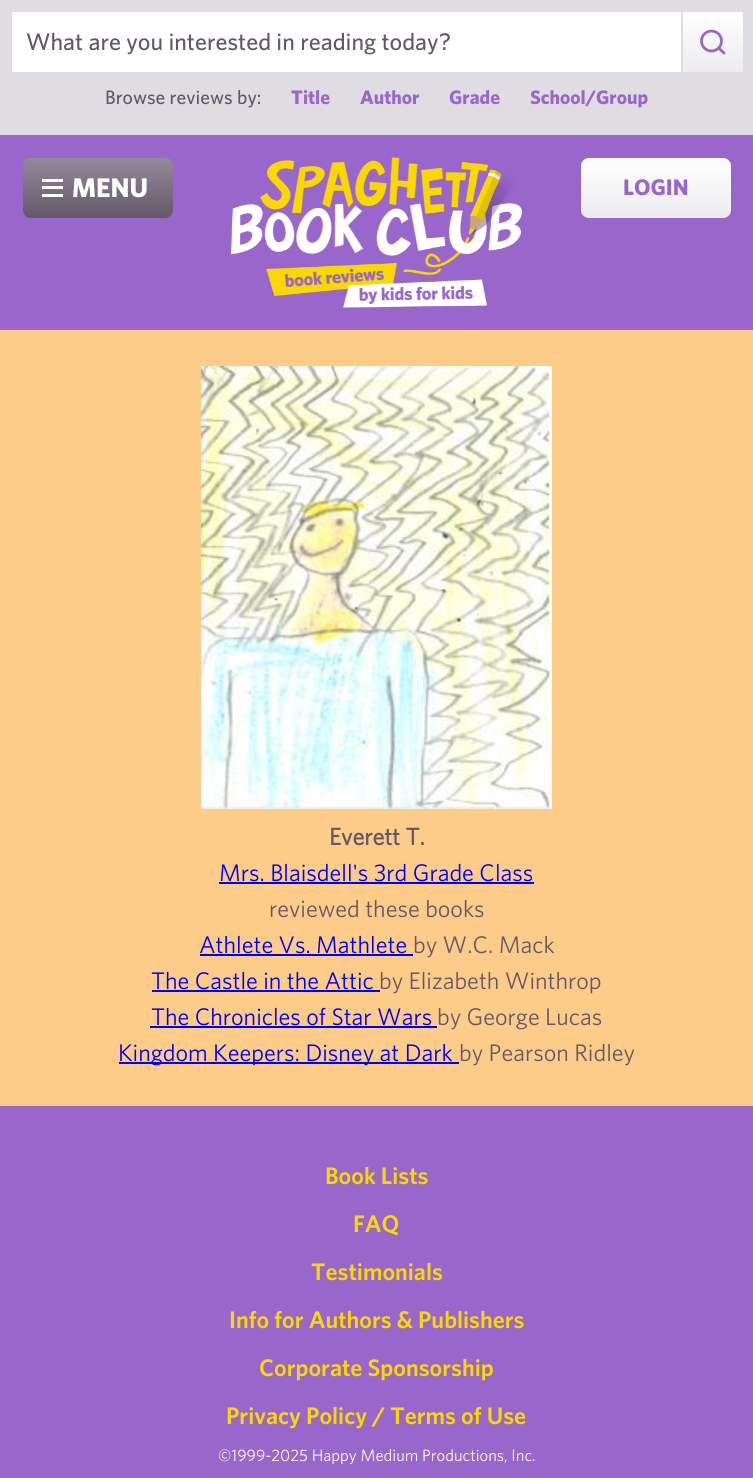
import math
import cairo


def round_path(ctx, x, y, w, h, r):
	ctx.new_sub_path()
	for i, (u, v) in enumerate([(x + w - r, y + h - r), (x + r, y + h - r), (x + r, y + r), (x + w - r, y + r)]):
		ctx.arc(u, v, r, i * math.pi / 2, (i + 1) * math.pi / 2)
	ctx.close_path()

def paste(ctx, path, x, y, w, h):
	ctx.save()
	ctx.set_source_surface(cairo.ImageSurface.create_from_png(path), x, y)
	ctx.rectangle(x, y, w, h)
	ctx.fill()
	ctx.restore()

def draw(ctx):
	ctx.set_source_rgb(0.6, 0.4, 0.8)
	ctx.paint()
	ctx.set_source_rgb(0.878, 0.867, 0.886)
	ctx.rectangle(0, 0, 753, 135)
	ctx.fill()
	ctx.set_source_rgb(1, 1, 1)
	ctx.rectangle(12, 12, 669, 60)
	ctx.fill()
	ctx.select_font_face('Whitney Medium')
	ctx.set_font_size(24)
	ctx.set_source_rgb(0.384, 0.345, 0.408)
	ctx.move_to(26, 50)
	ctx.show_text('What are you interested in reading today?')
	gradient = cairo.LinearGradient(683, 72, 683, -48)
	gradient.add_color_stop_rgba(0, 0.929, 0.922, 0.933, 1)
	gradient.add_color_stop_rgba(0.5, 1, 1, 1, 1)
	ctx.set_source(gradient)
	ctx.rectangle(683, 12, 60, 60)
	ctx.fill()
	ctx.arc(711.5, 41, 10, 0, 2 * math.pi)
	ctx.set_source_rgb(0.6, 0.4, 0.8)
	ctx.set_line_width(2.8)
	ctx.stroke()
	ctx.new_path()
	ctx.move_to(724, 53)
	ctx.line_to(718.5, 48)
	ctx.set_line_cap(cairo.LINE_CAP_ROUND)
	ctx.set_line_join(cairo.LINE_JOIN_ROUND)
	ctx.stroke()
	ctx.set_font_size(19.5)
	ctx.set_source_rgb(0.384, 0.345, 0.408)
	ctx.move_to(105, 104)
	ctx.show_text('Browse reviews by:')
	ctx.select_font_face('Whitney', cairo.FONT_SLANT_NORMAL, cairo.FONT_WEIGHT_BOLD)
	ctx.set_source_rgb(0.6, 0.4, 0.8)
	for x, y, s in [
		(291, 104, 'Title'),
		(360, 104, 'Author'),
		(449, 104, 'Grade'),
		(530, 104, 'School/Group'),
	]:
		ctx.move_to(x, y)
		ctx.show_text(s)
	gradient = cairo.LinearGradient(23, 218, 23, 98)
	gradient.add_color_stop_rgba(0, 0.384, 0.345, 0.408, 1)
	gradient.add_color_stop_rgba(0.5, 0.584, 0.541, 0.612, 1)
	ctx.set_source(gradient)
	round_path(ctx, 23, 158, 150, 60, 8)
	ctx.fill()
	ctx.set_source_rgb(1, 1, 1)
	ctx.rectangle(42, 179, 21, 3)
	ctx.fill()
	ctx.rectangle(42, 194, 21, 3)
	ctx.fill()
	ctx.set_font_size(27)
	ctx.move_to(72, 197)
	ctx.show_text('MENU')
	ctx.rectangle(42, 186, 21, 3)
	ctx.fill()
	paste(ctx, 'media/1.png', 231, 157, 291, 151)
	gradient = cairo.LinearGradient(581, 218, 581, 98)
	gradient.add_color_stop_rgba(0, 0.929, 0.922, 0.933, 1)
	gradient.add_color_stop_rgba(0.5, 1, 1, 1, 1)
	ctx.set_source(gradient)
	round_path(ctx, 581, 158, 150, 60, 8)
	ctx.fill()
	ctx.set_font_size(22.5)
	ctx.set_source_rgb(0.6, 0.4, 0.8)
	ctx.move_to(623, 195)
	ctx.show_text('LOGIN')
	ctx.set_source_rgb(0.988, 0.8, 0.533)
	ctx.rectangle(0, 330, 753, 776)
	ctx.fill()
	paste(ctx, 'media/2.png', 201, 366, 351, 443)
	ctx.select_font_face('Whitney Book', cairo.FONT_SLANT_NORMAL, cairo.FONT_WEIGHT_BOLD)
	ctx.set_font_size(24)
	ctx.set_source_rgb(0.384, 0.345, 0.408)
	ctx.move_to(329, 845)
	ctx.show_text('Everett T.')
	ctx.select_font_face('Whitney Book')
	ctx.set_source_rgb(0, 0, 0.933)
	ctx.move_to(219, 881)
	ctx.show_text('Mrs. Blaisdell\'s 3rd Grade Class')
	ctx.rectangle(219, 882, 315, 2)
	ctx.fill()
	ctx.set_source_rgb(0.384, 0.345, 0.408)
	ctx.move_to(269, 917)
	ctx.show_text('reviewed these books')
	ctx.set_source_rgb(0, 0, 0.933)
	ctx.move_to(199, 953)
	ctx.show_text('Athlete Vs. Mathlete')
	ctx.rectangle(200, 954, 213, 2)
	ctx.fill()
	ctx.set_source_rgb(0.384, 0.345, 0.408)
	ctx.move_to(413, 953)
	ctx.show_text('by W.C. Mack')
	ctx.set_source_rgb(0, 0, 0.933)
	ctx.move_to(151, 989)
	ctx.show_text('The Castle in the Attic')
	ctx.rectangle(152, 990, 228, 2)
	ctx.fill()
	ctx.set_source_rgb(0.384, 0.345, 0.408)
	ctx.move_to(379, 989)
	ctx.show_text('by Elizabeth Winthrop')
	ctx.set_source_rgb(0, 0, 0.933)
	ctx.move_to(151, 1025)
	ctx.show_text('The Chronicles of Star Wars')
	ctx.rectangle(150, 1026, 287, 2)
	ctx.fill()
	ctx.set_source_rgb(0.384, 0.345, 0.408)
	ctx.move_to(437, 1025)
	ctx.show_text('by George Lucas')
	ctx.set_source_rgb(0, 0, 0.933)
	ctx.rectangle(119, 1062, 340, 2)
	ctx.fill()
	ctx.move_to(118, 1061)
	ctx.show_text('Kingdom Keepers: Disney at Dark')
	ctx.set_source_rgb(0.384, 0.345, 0.408)
	ctx.move_to(459, 1061)
	ctx.show_text('by Pearson Ridley')
	ctx.select_font_face('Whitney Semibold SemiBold')
	ctx.set_source_rgb(0.98, 0.851, 0)
	for x, y, s in [
		(325, 1184, 'Book Lists'),
		(353, 1232, 'FAQ'),
		(311, 1280, 'Testimonials'),
		(229, 1328, 'Info for Authors & Publishers'),
		(259, 1376, 'Corporate Sponsorship'),
		(226, 1424, 'Privacy Policy / Terms of Use'),
	]:
		ctx.move_to(x, y)
		ctx.show_text(s)
	ctx.select_font_face('Whitney Book')
	ctx.set_font_size(16.5)
	ctx.set_source_rgb(1, 1, 1)
	ctx.move_to(218, 1461)
	ctx.show_text('©1999-2025 Happy Medium Productions, Inc.')


surface = cairo.ImageSurface(cairo.FORMAT_RGB24, 753, 1478)
ctx = cairo.Context(surface)
options = cairo.FontOptions()
options.set_hint_metrics(cairo.HINT_METRICS_OFF)
options.set_hint_style(cairo.HINT_STYLE_NONE)
ctx.set_font_options(options)
ctx.set_miter_limit(4)
draw(ctx)
surface.write_to_png('image.png')
